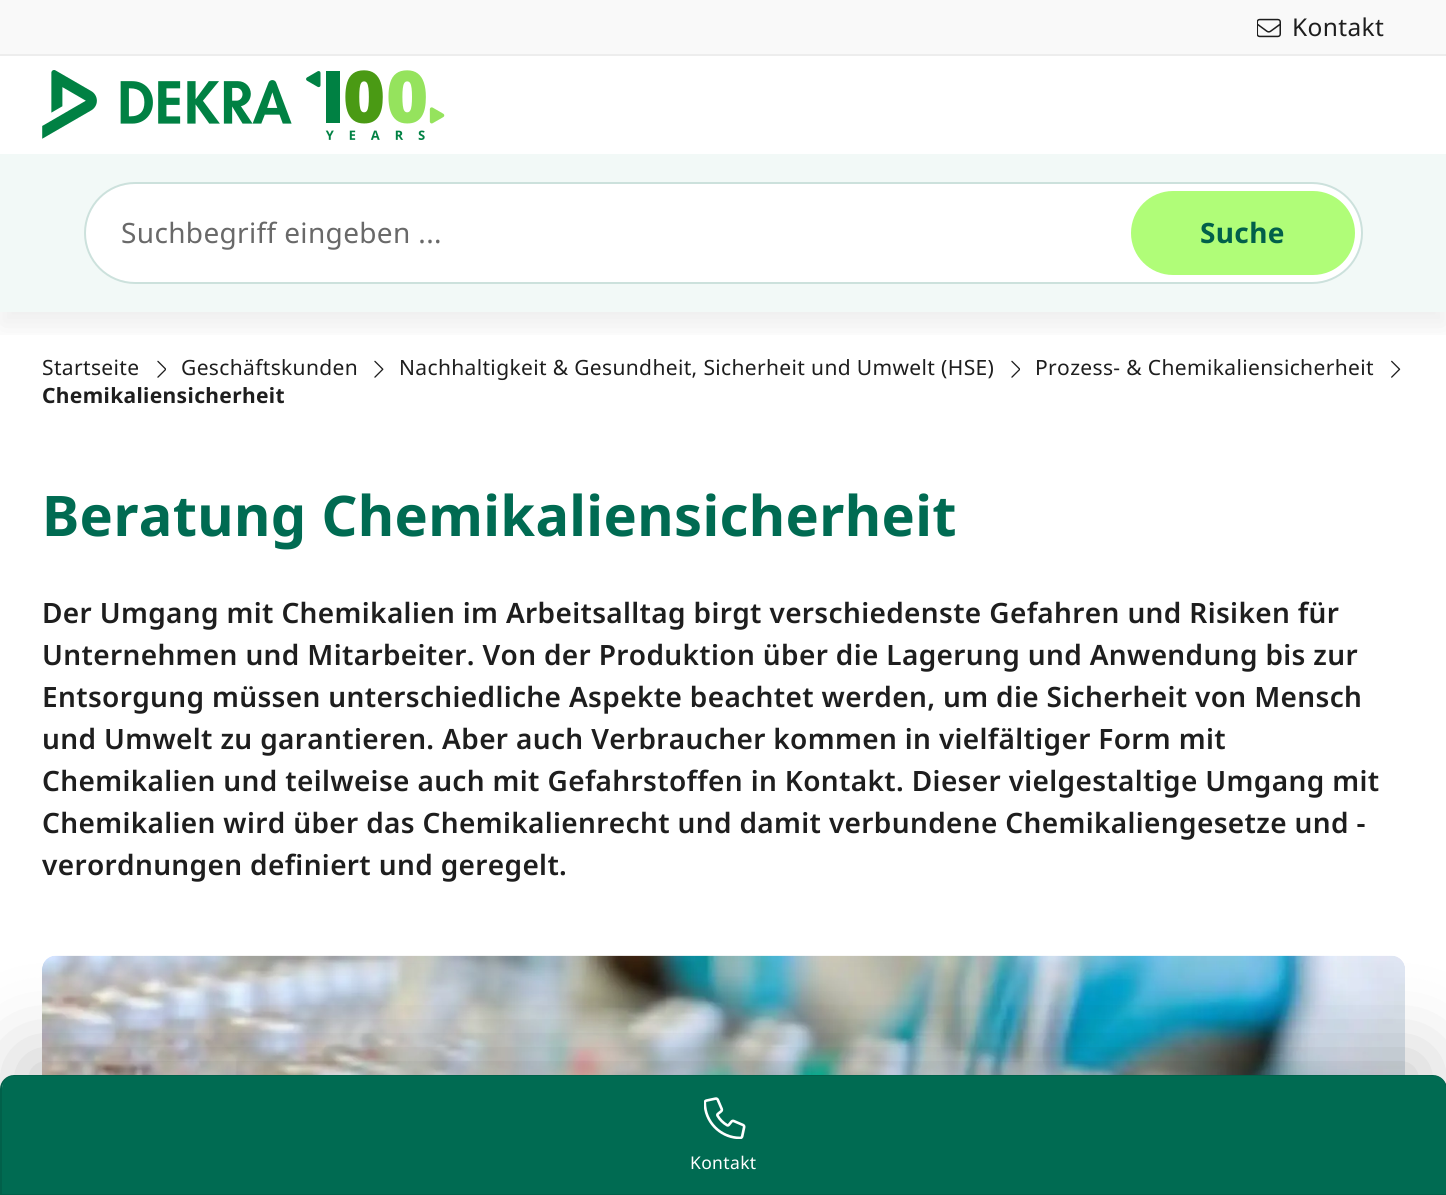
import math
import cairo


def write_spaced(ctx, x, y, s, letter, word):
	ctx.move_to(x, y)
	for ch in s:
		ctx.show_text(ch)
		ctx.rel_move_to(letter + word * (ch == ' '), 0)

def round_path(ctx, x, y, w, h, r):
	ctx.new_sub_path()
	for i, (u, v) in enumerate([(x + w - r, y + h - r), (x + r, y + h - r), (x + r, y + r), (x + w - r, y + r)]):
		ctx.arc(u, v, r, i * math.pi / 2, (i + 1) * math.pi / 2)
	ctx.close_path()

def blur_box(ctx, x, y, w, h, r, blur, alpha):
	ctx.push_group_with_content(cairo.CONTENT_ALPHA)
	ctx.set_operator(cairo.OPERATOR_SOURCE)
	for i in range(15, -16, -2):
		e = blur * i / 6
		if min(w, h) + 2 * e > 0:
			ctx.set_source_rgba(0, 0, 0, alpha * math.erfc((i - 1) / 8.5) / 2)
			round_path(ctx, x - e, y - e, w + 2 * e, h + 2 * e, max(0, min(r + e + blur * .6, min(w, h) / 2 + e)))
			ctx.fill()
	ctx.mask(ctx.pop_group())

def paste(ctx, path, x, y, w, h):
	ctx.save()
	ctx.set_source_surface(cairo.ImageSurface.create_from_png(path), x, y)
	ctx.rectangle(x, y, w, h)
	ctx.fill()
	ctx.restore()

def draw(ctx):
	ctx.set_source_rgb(1, 1, 1)
	ctx.paint()
	paste(ctx, 'media/3.png', 157, 360, 9, 18)
	paste(ctx, 'media/4.png', 374, 360, 10, 18)
	paste(ctx, 'media/3.png', 1011, 360, 9, 18)
	paste(ctx, 'media/5.png', 1391, 360, 10, 18)
	ctx.save()
	ctx.rectangle(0, 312, 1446, 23)
	ctx.clip()
	ctx.set_source_rgb(0.118, 0.118, 0.118)
	blur_box(ctx, 0, 14, 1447, 312, 0, 14, 0.08)
	ctx.restore()
	ctx.set_source_rgb(0.973, 0.973, 0.973)
	ctx.rectangle(0, 0, 1446, 54)
	ctx.fill()
	ctx.set_source_rgb(0.929, 0.929, 0.929)
	ctx.rectangle(0, 54, 1446, 2)
	ctx.fill()
	paste(ctx, 'media/1.png', 1257, 18, 24, 20)
	ctx.select_font_face('Noto Sans')
	ctx.set_font_size(24.5)
	ctx.set_source_rgb(0.118, 0.118, 0.118)
	write_spaced(ctx, 1292, 36, 'Kontakt', 0.35, 0)
	paste(ctx, 'media/2.png', 42, 70, 403, 70)
	ctx.set_source_rgb(0.949, 0.973, 0.965)
	ctx.rectangle(0, 154, 1446, 158)
	ctx.fill()
	ctx.set_source_rgb(1, 1, 1)
	round_path(ctx, 85, 183, 1277, 100, 50)
	ctx.fill_preserve()
	ctx.set_source_rgb(0.8, 0.882, 0.863)
	ctx.stroke()
	ctx.set_font_size(28)
	ctx.set_source_rgb(0.412, 0.412, 0.412)
	write_spaced(ctx, 121, 243, 'Suchbegriff eingeben ...', 0.35, 0)
	ctx.set_source_rgb(0.69, 0.992, 0.471)
	round_path(ctx, 1131, 191, 224, 84, 42)
	ctx.fill()
	ctx.select_font_face('Noto Sans', cairo.FONT_SLANT_NORMAL, cairo.FONT_WEIGHT_BOLD)
	ctx.set_source_rgb(0.004, 0.376, 0.29)
	write_spaced(ctx, 1200, 243, 'Suche', 0.35, 0)
	ctx.select_font_face('Noto Sans')
	ctx.set_font_size(21)
	ctx.set_source_rgb(0.118, 0.118, 0.118)
	for x, y, s in [
		(42, 375, 'Startseite'),
		(181, 375, 'Geschäftskunden'),
		(399, 375, 'Nachhaltigkeit & Gesundheit, Sicherheit und Umwelt (HSE)'),
		(1035, 375, 'Prozess- & Chemikaliensicherheit'),
	]:
		write_spaced(ctx, x, y, s, 0.35, 0)
	ctx.select_font_face('Noto Sans', cairo.FONT_SLANT_NORMAL, cairo.FONT_WEIGHT_BOLD)
	write_spaced(ctx, 42, 403, 'Chemikaliensicherheit', 0.35, 0)
	ctx.set_font_size(56)
	ctx.set_source_rgb(0, 0.42, 0.322)
	write_spaced(ctx, 42, 536, 'Beratung Chemikaliensicherheit', 0.35, 0)
	ctx.select_font_face('Noto Sans SemiBold')
	ctx.set_font_size(28)
	ctx.set_source_rgb(0.118, 0.118, 0.118)
	for x, y, s in [
		(42, 623, 'Der Umgang mit Chemikalien im Arbeitsalltag birgt verschiedenste Gefahren und Risiken für'),
		(42, 665, 'Unternehmen und Mitarbeiter. Von der Produktion über die Lagerung und Anwendung bis zur'),
		(42, 707, 'Entsorgung müssen unterschiedliche Aspekte beachtet werden, um die Sicherheit von Mensch'),
		(42, 749, 'und Umwelt zu garantieren. Aber auch Verbraucher kommen in vielfältiger Form mit'),
		(42, 791, 'Chemikalien und teilweise auch mit Gefahrstoffen in Kontakt. Dieser vielgestaltige Umgang mit'),
		(42, 833, 'Chemikalien wird über das Chemikalienrecht und damit verbundene Chemikaliengesetze und -'),
		(42, 875, 'verordnungen definiert und geregelt.'),
	]:
		write_spaced(ctx, x, y, s, 0.35, 0)
	paste(ctx, 'media/6.png', 42, 955, 1363, 120)
	ctx.set_source_rgb(0.118, 0.118, 0.118)
	blur_box(ctx, 21, 1054, 1405, 78, 0, 42, 0.24)
	ctx.new_path()
	ctx.move_to(14, 1076)
	ctx.line_to(1433, 1076)
	ctx.curve_to(1440, 1076, 1446, 1082, 1446, 1089)
	ctx.line_to(1446, 1194)
	ctx.line_to(1, 1194)
	ctx.line_to(1, 1089)
	ctx.curve_to(1, 1082, 7, 1076, 14, 1076)
	ctx.close_path()
	ctx.set_source_rgb(0.004, 0.376, 0.29)
	ctx.stroke()
	ctx.set_source_rgb(0, 0.42, 0.322)
	ctx.new_path()
	ctx.move_to(14, 1076)
	ctx.line_to(1434, 1076)
	ctx.curve_to(1440.5, 1076, 1446, 1081.5, 1446, 1088)
	ctx.line_to(1446, 1194)
	ctx.line_to(2, 1194)
	ctx.line_to(2, 1088)
	ctx.curve_to(2, 1081.5, 7.5, 1076, 14, 1076)
	ctx.close_path()
	ctx.fill()
	paste(ctx, 'media/7.png', 704, 1097, 42, 42)
	ctx.select_font_face('Noto Sans')
	ctx.set_font_size(17.5)
	ctx.set_source_rgb(1, 1, 1)
	write_spaced(ctx, 690, 1169, 'Kontakt', 0.35, 0)


surface = cairo.ImageSurface(cairo.FORMAT_RGB24, 1446, 1195)
ctx = cairo.Context(surface)
options = cairo.FontOptions()
options.set_hint_metrics(cairo.HINT_METRICS_OFF)
options.set_hint_style(cairo.HINT_STYLE_NONE)
ctx.set_font_options(options)
ctx.set_miter_limit(4)
draw(ctx)
surface.write_to_png('image.png')
